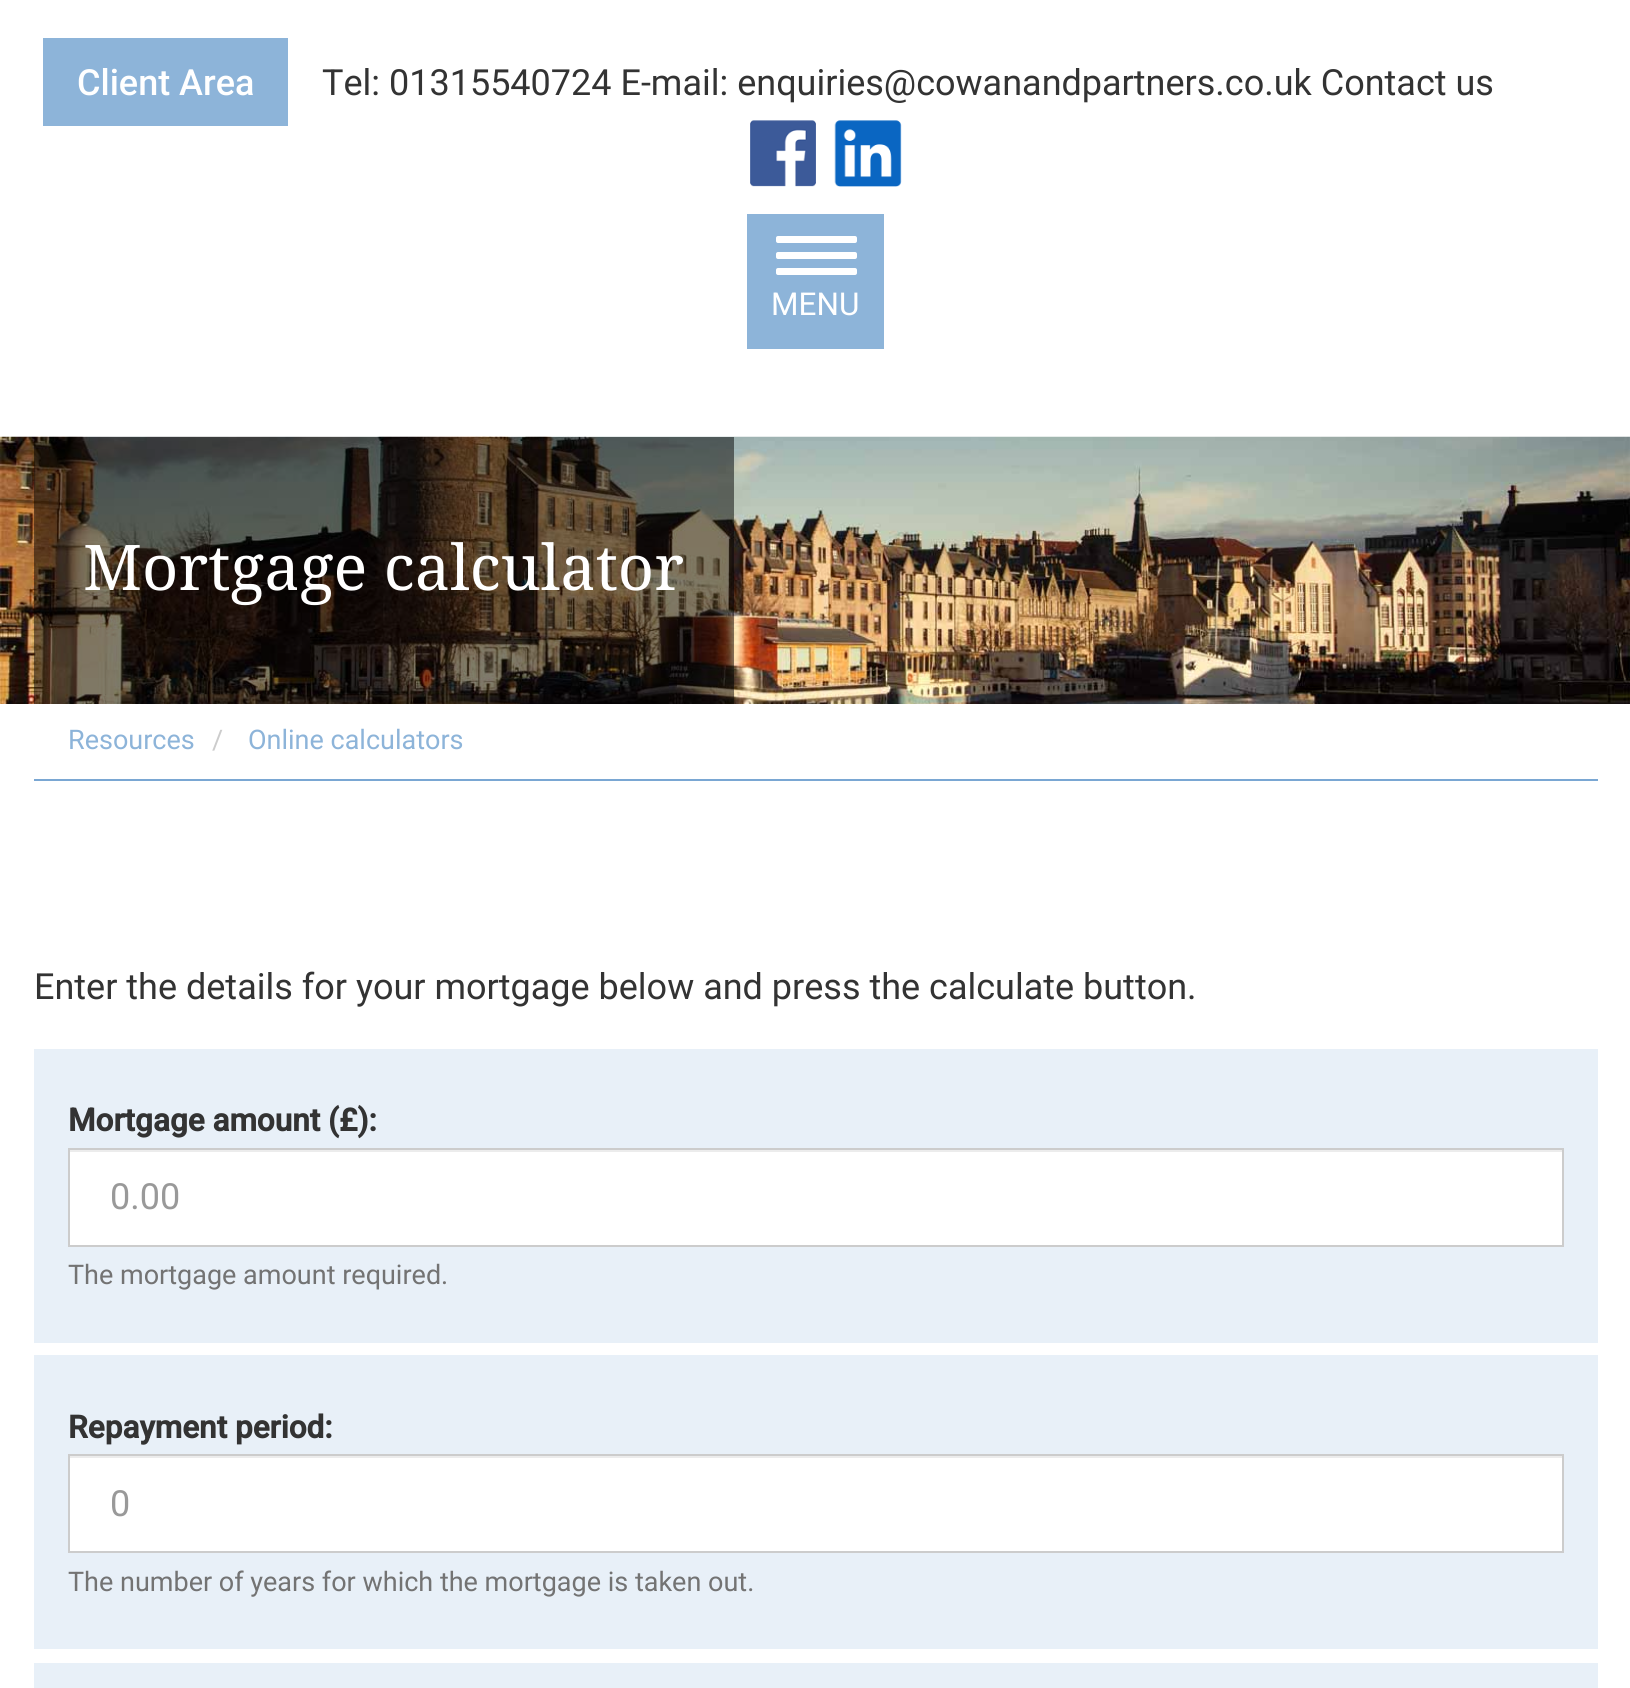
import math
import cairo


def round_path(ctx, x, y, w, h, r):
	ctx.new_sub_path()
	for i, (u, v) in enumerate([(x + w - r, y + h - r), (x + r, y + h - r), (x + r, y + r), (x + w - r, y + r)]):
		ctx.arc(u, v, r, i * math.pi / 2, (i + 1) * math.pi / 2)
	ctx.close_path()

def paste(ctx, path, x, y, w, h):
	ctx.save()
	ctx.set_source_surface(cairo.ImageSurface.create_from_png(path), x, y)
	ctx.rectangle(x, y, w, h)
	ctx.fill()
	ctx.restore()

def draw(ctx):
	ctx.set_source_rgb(1, 1, 1)
	ctx.paint()
	ctx.set_source_rgb(0.553, 0.706, 0.851)
	ctx.rectangle(43, 38, 245, 88)
	ctx.fill()
	ctx.select_font_face('Roboto Medium')
	ctx.set_font_size(36)
	ctx.set_source_rgb(1, 1, 1)
	ctx.move_to(77, 95)
	ctx.show_text('Client Area')
	ctx.select_font_face('Roboto')
	ctx.set_source_rgb(0.2, 0.2, 0.2)
	ctx.move_to(322, 95)
	ctx.show_text('Tel: 01315540724 E-mail: enquiries@cowanandpartners.co.uk Contact us')
	paste(ctx, 'media/1.png', 750, 120, 66, 67)
	paste(ctx, 'media/2.png', 834, 120, 68, 67)
	ctx.set_source_rgb(0.553, 0.706, 0.851)
	ctx.rectangle(747, 214, 137, 135)
	ctx.fill()
	ctx.set_source_rgb(1, 1, 1)
	round_path(ctx, 776, 236, 81, 7, 2)
	ctx.fill()
	round_path(ctx, 776, 252, 81, 7, 2)
	ctx.fill()
	round_path(ctx, 776, 268, 81, 7, 2)
	ctx.fill()
	ctx.set_font_size(31.5)
	ctx.move_to(771, 315)
	ctx.show_text('MENU')
	paste(ctx, 'media/3.png', 0, 436, 1630, 268)
	ctx.set_source_rgba(0, 0, 0, 0.5)
	ctx.rectangle(34, 437, 700, 267)
	ctx.fill()
	ctx.select_font_face('Droid Serif')
	ctx.set_font_size(63)
	ctx.set_source_rgb(1, 1, 1)
	ctx.move_to(83, 590)
	ctx.show_text('Mortgage calculator')
	ctx.set_source_rgb(0.478, 0.655, 0.827)
	ctx.rectangle(34, 779, 1564, 2)
	ctx.fill()
	ctx.select_font_face('Roboto')
	ctx.set_font_size(27)
	ctx.set_source_rgb(0.553, 0.706, 0.851)
	ctx.move_to(68, 749)
	ctx.show_text('Resources')
	ctx.set_source_rgb(0.8, 0.8, 0.8)
	ctx.move_to(212, 749)
	ctx.show_text('/')
	ctx.set_source_rgb(0.553, 0.706, 0.851)
	ctx.move_to(248, 749)
	ctx.show_text('Online calculators')
	ctx.set_font_size(36)
	ctx.set_source_rgb(0.2, 0.2, 0.2)
	ctx.move_to(34, 999)
	ctx.show_text('Enter the details for your mortgage below and press the calculate button.')
	ctx.set_source_rgb(0.91, 0.941, 0.969)
	ctx.rectangle(34, 1049, 1564, 294)
	ctx.fill()
	ctx.select_font_face('Roboto', cairo.FONT_SLANT_NORMAL, cairo.FONT_WEIGHT_BOLD)
	ctx.set_font_size(31.5)
	ctx.set_source_rgb(0.2, 0.2, 0.2)
	ctx.move_to(68, 1131)
	ctx.show_text('Mortgage amount (£):')
	ctx.set_source_rgb(1, 1, 1)
	ctx.rectangle(70, 1152, 1492, 93)
	ctx.fill()
	ctx.set_source_rgb(0.925, 0.925, 0.925)
	ctx.rectangle(70, 1150, 1492, 2)
	ctx.fill()
	ctx.rectangle(69, 1149, 1494, 97)
	ctx.set_source_rgb(0.8, 0.8, 0.8)
	ctx.stroke()
	ctx.select_font_face('Roboto')
	ctx.set_font_size(36)
	ctx.set_source_rgb(0.6, 0.6, 0.6)
	ctx.move_to(110, 1209)
	ctx.show_text('0.00')
	ctx.set_font_size(27)
	ctx.set_source_rgb(0.451, 0.451, 0.451)
	ctx.move_to(68, 1284)
	ctx.show_text('The mortgage amount required.')
	ctx.set_source_rgb(0.91, 0.941, 0.969)
	ctx.rectangle(34, 1355, 1564, 294)
	ctx.fill()
	ctx.select_font_face('Roboto', cairo.FONT_SLANT_NORMAL, cairo.FONT_WEIGHT_BOLD)
	ctx.set_font_size(31.5)
	ctx.set_source_rgb(0.2, 0.2, 0.2)
	ctx.move_to(68, 1438)
	ctx.show_text('Repayment period:')
	ctx.set_source_rgb(1, 1, 1)
	ctx.rectangle(70, 1458, 1492, 93)
	ctx.fill()
	ctx.set_source_rgb(0.925, 0.925, 0.925)
	ctx.rectangle(70, 1456, 1492, 2)
	ctx.fill()
	ctx.rectangle(69, 1455, 1494, 97)
	ctx.set_source_rgb(0.8, 0.8, 0.8)
	ctx.stroke()
	ctx.select_font_face('Roboto')
	ctx.set_font_size(36)
	ctx.set_source_rgb(0.6, 0.6, 0.6)
	ctx.move_to(110, 1516)
	ctx.show_text('0')
	ctx.set_font_size(27)
	ctx.set_source_rgb(0.451, 0.451, 0.451)
	ctx.move_to(68, 1591)
	ctx.show_text('The number of years for which the mortgage is taken out.')
	ctx.set_source_rgb(0.91, 0.941, 0.969)
	ctx.rectangle(34, 1663, 1564, 25)
	ctx.fill()


surface = cairo.ImageSurface(cairo.FORMAT_RGB24, 1630, 1688)
ctx = cairo.Context(surface)
options = cairo.FontOptions()
options.set_hint_metrics(cairo.HINT_METRICS_OFF)
options.set_hint_style(cairo.HINT_STYLE_NONE)
ctx.set_font_options(options)
ctx.set_miter_limit(4)
draw(ctx)
surface.write_to_png('image.png')
